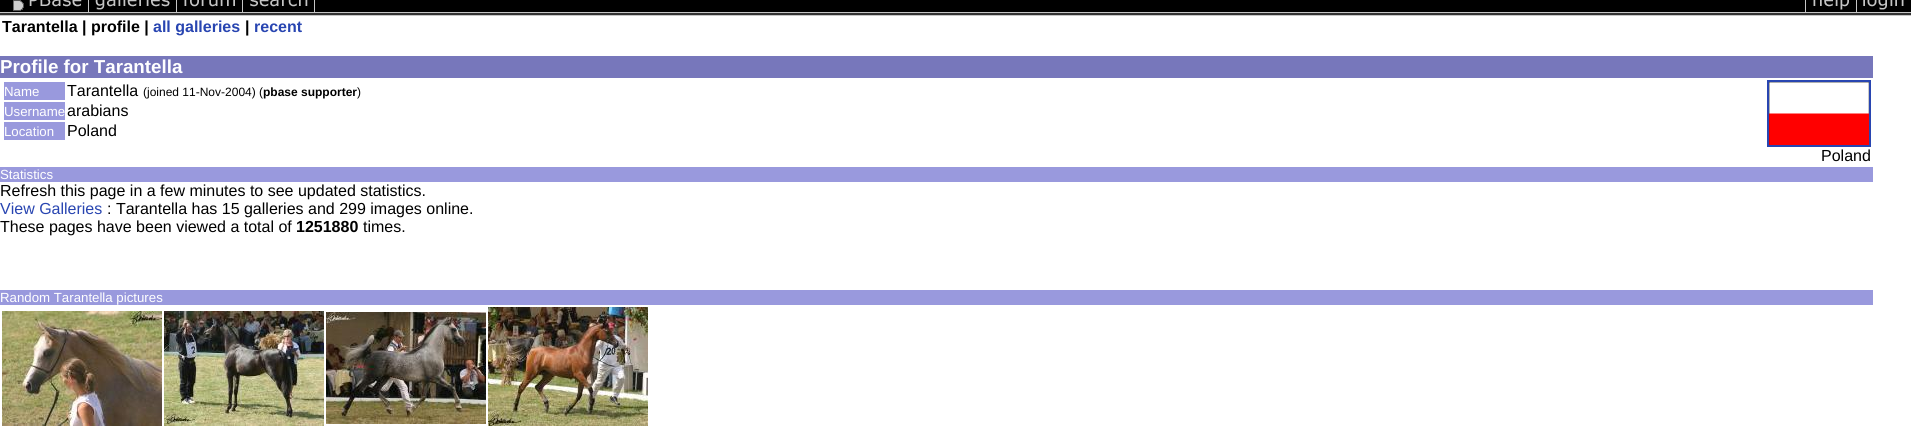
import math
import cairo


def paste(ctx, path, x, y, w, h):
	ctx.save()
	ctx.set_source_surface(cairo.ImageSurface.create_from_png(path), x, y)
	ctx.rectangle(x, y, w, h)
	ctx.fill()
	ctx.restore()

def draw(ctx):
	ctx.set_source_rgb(1, 1, 1)
	ctx.paint()
	paste(ctx, 'media/1.png', 0, 0, 89, 16)
	paste(ctx, 'media/2.png', 89, 0, 88, 16)
	paste(ctx, 'media/3.png', 177, 0, 66, 16)
	paste(ctx, 'media/4.png', 243, 0, 72, 16)
	paste(ctx, 'media/5.png', 315, 0, 1490, 16)
	paste(ctx, 'media/6.png', 1805, 0, 52, 16)
	paste(ctx, 'media/7.png', 1857, 0, 54, 16)
	ctx.select_font_face('Liberation Sans', cairo.FONT_SLANT_NORMAL, cairo.FONT_WEIGHT_BOLD)
	ctx.set_font_size(16)
	ctx.set_source_rgb(0, 0, 0)
	ctx.move_to(2, 32)
	ctx.show_text('Tarantella | profile |')
	ctx.set_source_rgb(0.157, 0.271, 0.694)
	ctx.move_to(153, 32)
	ctx.show_text('all galleries')
	ctx.set_source_rgb(0, 0, 0)
	ctx.move_to(245, 32)
	ctx.show_text('|')
	ctx.set_source_rgb(0.157, 0.271, 0.694)
	ctx.move_to(254, 32)
	ctx.show_text('recent')
	ctx.set_source_rgb(0.467, 0.467, 0.733)
	ctx.rectangle(0, 56, 1873, 22)
	ctx.fill()
	ctx.set_font_size(18.75)
	ctx.set_source_rgb(1, 1, 1)
	ctx.move_to(0, 73)
	ctx.show_text('Profile for Tarantella')
	ctx.set_source_rgb(0.6, 0.6, 0.867)
	ctx.rectangle(4, 82, 61, 18)
	ctx.fill()
	ctx.select_font_face('Liberation Sans')
	ctx.set_font_size(13.25)
	ctx.set_source_rgb(1, 1, 1)
	ctx.move_to(4, 96)
	ctx.show_text('Name')
	ctx.set_font_size(16)
	ctx.set_source_rgb(0, 0, 0)
	ctx.move_to(67, 96)
	ctx.show_text('Tarantella')
	ctx.set_font_size(12)
	ctx.move_to(143, 96)
	ctx.show_text('(joined 11-Nov-2004) (')
	ctx.select_font_face('Liberation Sans', cairo.FONT_SLANT_NORMAL, cairo.FONT_WEIGHT_BOLD)
	ctx.move_to(263, 96)
	ctx.show_text('pbase supporter')
	ctx.select_font_face('Liberation Sans')
	ctx.move_to(357, 96)
	ctx.show_text(')')
	ctx.set_source_rgb(0.6, 0.6, 0.867)
	ctx.rectangle(4, 102, 61, 18)
	ctx.fill()
	ctx.set_font_size(13.25)
	ctx.set_source_rgb(1, 1, 1)
	ctx.move_to(4, 116)
	ctx.show_text('Username')
	ctx.set_font_size(16)
	ctx.set_source_rgb(0, 0, 0)
	ctx.move_to(67, 116)
	ctx.show_text('arabians')
	ctx.set_source_rgb(0.6, 0.6, 0.867)
	ctx.rectangle(4, 122, 61, 18)
	ctx.fill()
	ctx.set_font_size(13.25)
	ctx.set_source_rgb(1, 1, 1)
	ctx.move_to(4, 136)
	ctx.show_text('Location')
	ctx.set_font_size(16)
	ctx.set_source_rgb(0, 0, 0)
	ctx.move_to(67, 136)
	ctx.show_text('Poland')
	ctx.rectangle(1768, 81, 102, 65)
	ctx.set_source_rgb(0.157, 0.271, 0.694)
	ctx.stroke()
	paste(ctx, 'media/8.png', 1769, 82, 100, 63)
	ctx.set_source_rgb(0, 0, 0)
	ctx.move_to(1821, 161)
	ctx.show_text('Poland')
	ctx.set_source_rgb(0.6, 0.6, 0.867)
	ctx.rectangle(0, 167, 1873, 15)
	ctx.fill()
	ctx.set_font_size(13.25)
	ctx.set_source_rgb(1, 1, 1)
	ctx.move_to(0, 179)
	ctx.show_text('Statistics')
	ctx.set_font_size(16)
	ctx.set_source_rgb(0, 0, 0)
	ctx.move_to(0, 196)
	ctx.show_text('Refresh this page in a few minutes to see updated statistics.')
	ctx.set_source_rgb(0.157, 0.271, 0.694)
	ctx.move_to(0, 214)
	ctx.show_text('View Galleries')
	ctx.set_source_rgb(0, 0, 0)
	ctx.move_to(107, 214)
	ctx.show_text(': Tarantella has 15 galleries and 299 images online.')
	ctx.move_to(0, 232)
	ctx.show_text('These pages have been viewed a total of')
	ctx.select_font_face('Liberation Sans', cairo.FONT_SLANT_NORMAL, cairo.FONT_WEIGHT_BOLD)
	ctx.move_to(296, 232)
	ctx.show_text('1251880')
	ctx.select_font_face('Liberation Sans')
	ctx.move_to(363, 232)
	ctx.show_text('times.')
	ctx.set_source_rgb(0.6, 0.6, 0.867)
	ctx.rectangle(0, 290, 1873, 15)
	ctx.fill()
	ctx.set_font_size(13.25)
	ctx.set_source_rgb(1, 1, 1)
	ctx.move_to(0, 302)
	ctx.show_text('Random Tarantella pictures')
	paste(ctx, 'media/9.png', 2, 311, 160, 115)
	paste(ctx, 'media/10.png', 164, 311, 160, 115)
	paste(ctx, 'media/11.png', 326, 312, 160, 112)
	paste(ctx, 'media/12.png', 488, 307, 160, 119)


surface = cairo.ImageSurface(cairo.FORMAT_RGB24, 1911, 426)
ctx = cairo.Context(surface)
options = cairo.FontOptions()
options.set_hint_metrics(cairo.HINT_METRICS_OFF)
options.set_hint_style(cairo.HINT_STYLE_NONE)
ctx.set_font_options(options)
ctx.set_miter_limit(4)
draw(ctx)
surface.write_to_png('image.png')
